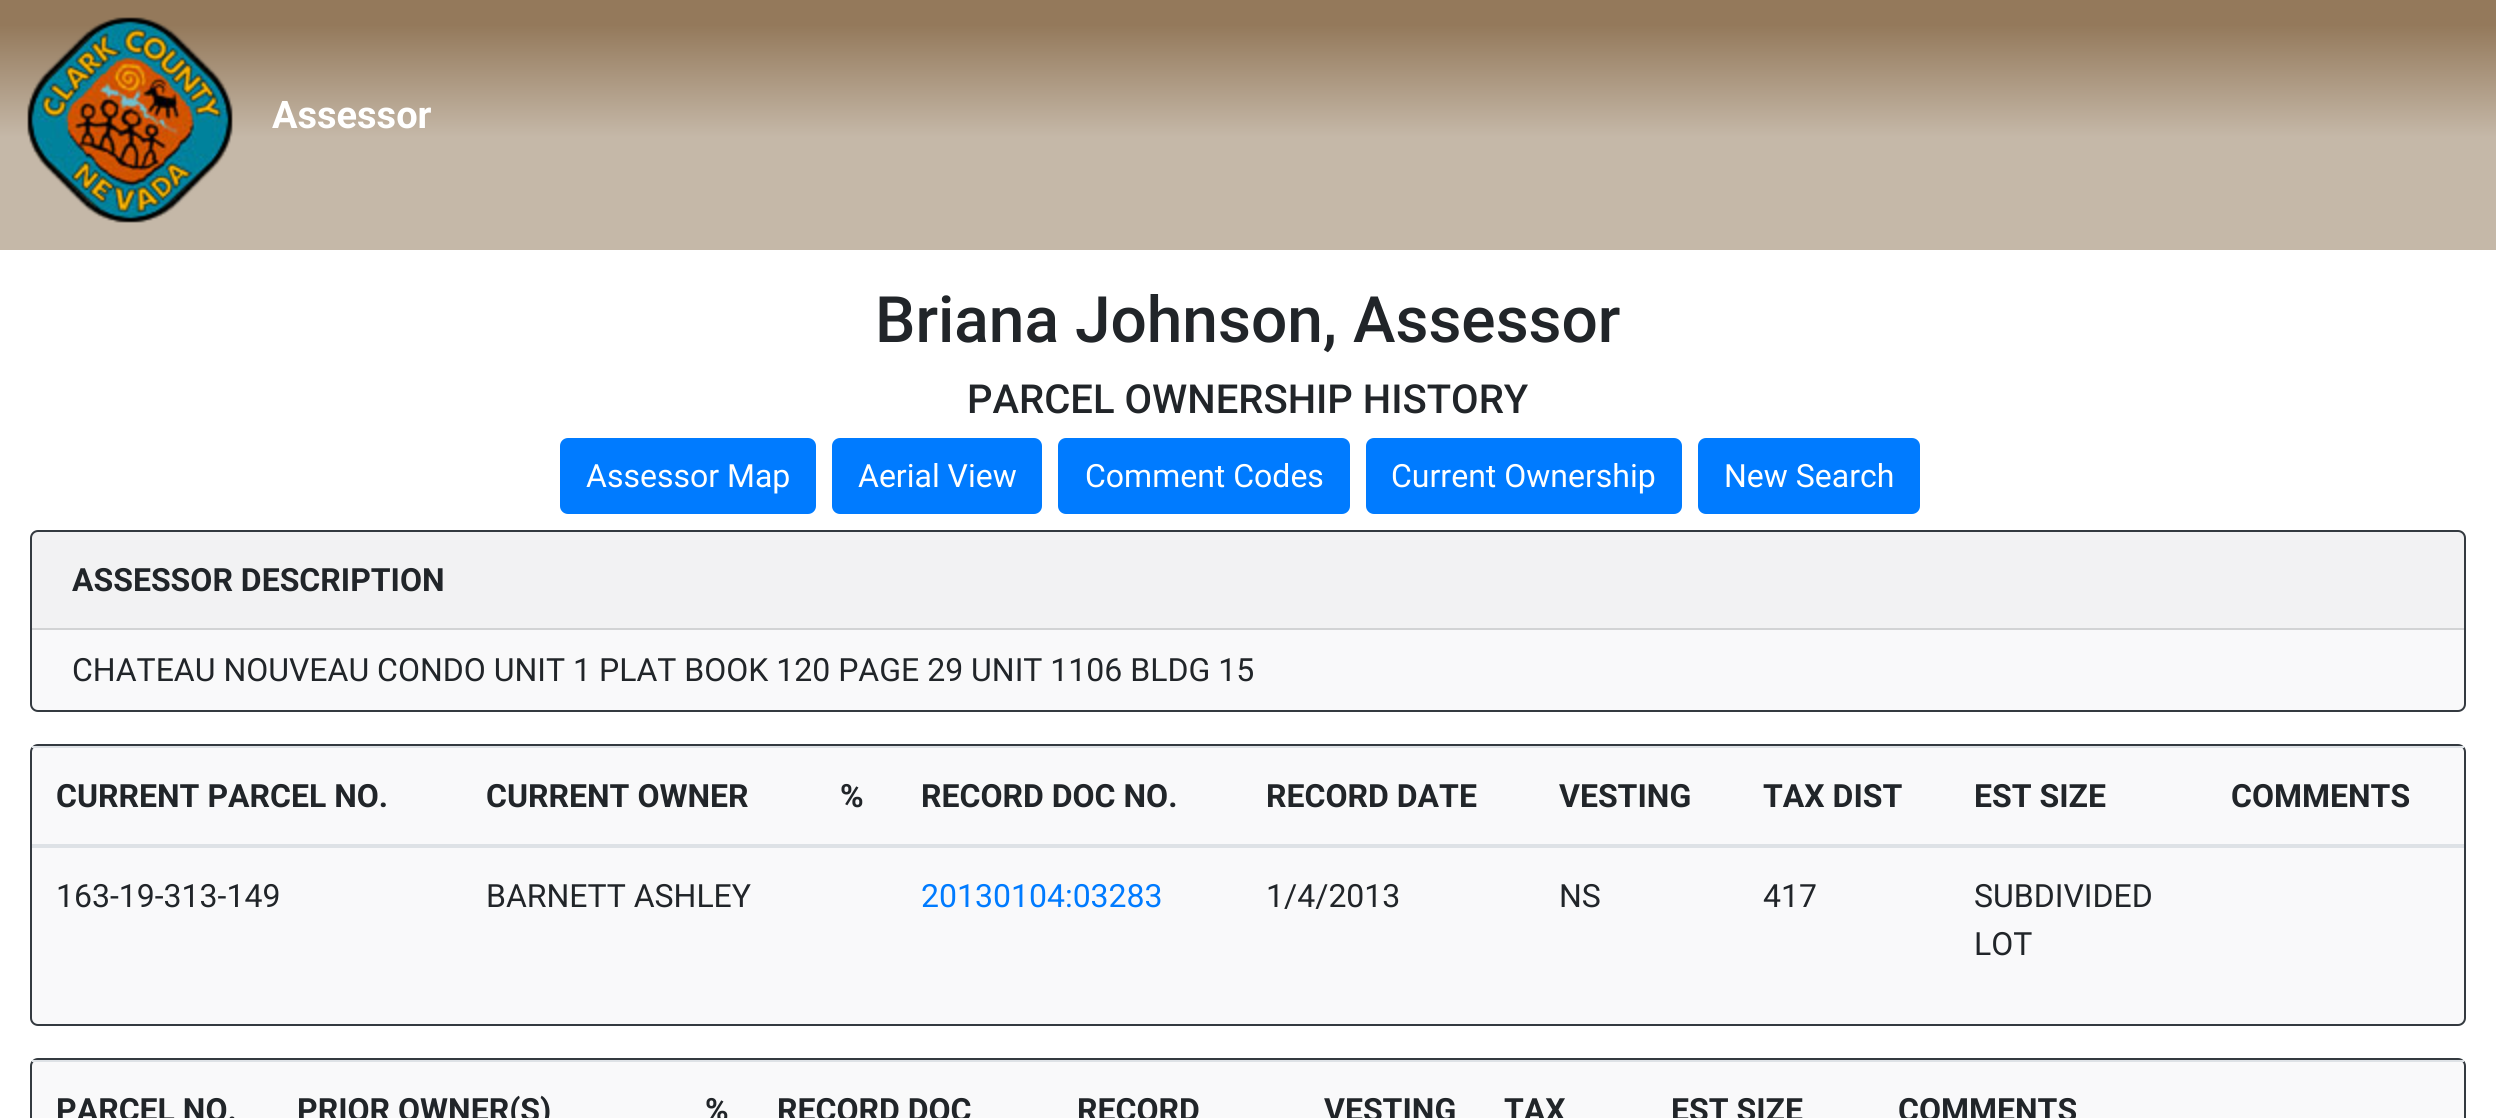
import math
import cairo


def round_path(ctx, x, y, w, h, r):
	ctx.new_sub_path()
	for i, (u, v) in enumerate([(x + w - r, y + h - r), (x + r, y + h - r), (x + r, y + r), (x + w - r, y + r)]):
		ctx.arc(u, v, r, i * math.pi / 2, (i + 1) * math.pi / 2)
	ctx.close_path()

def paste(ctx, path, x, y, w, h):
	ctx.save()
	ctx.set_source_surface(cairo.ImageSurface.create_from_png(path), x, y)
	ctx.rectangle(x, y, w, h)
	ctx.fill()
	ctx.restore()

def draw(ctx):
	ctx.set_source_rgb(1, 1, 1)
	ctx.paint()
	gradient = cairo.LinearGradient(1248, 0, 1248, 250)
	gradient.add_color_stop_rgba(0.1, 0.58, 0.475, 0.357, 1)
	gradient.add_color_stop_rgba(0.55, 0.773, 0.722, 0.659, 1)
	ctx.set_source(gradient)
	ctx.rectangle(0, 0, 2496, 250)
	ctx.fill()
	paste(ctx, 'media/1.png', 27, 17, 206, 206)
	ctx.select_font_face('Roboto', cairo.FONT_SLANT_NORMAL, cairo.FONT_WEIGHT_BOLD)
	ctx.set_font_size(38)
	ctx.set_source_rgb(1, 1, 1)
	ctx.move_to(272, 128)
	ctx.show_text('Assessor')
	ctx.select_font_face('Roboto Medium')
	ctx.set_font_size(64)
	ctx.set_source_rgb(0.129, 0.145, 0.161)
	ctx.move_to(875, 342)
	ctx.show_text('Briana Johnson, Assessor')
	ctx.set_font_size(40)
	ctx.move_to(967, 413)
	ctx.show_text('PARCEL OWNERSHIP HISTORY')
	ctx.set_source_rgb(0, 0.482, 1)
	round_path(ctx, 561, 439, 254, 74, 7)
	ctx.fill_preserve()
	ctx.stroke()
	ctx.select_font_face('Roboto')
	ctx.set_font_size(32)
	ctx.set_source_rgb(1, 1, 1)
	ctx.move_to(586, 487)
	ctx.show_text('Assessor Map')
	ctx.set_source_rgb(0, 0.482, 1)
	round_path(ctx, 833, 439, 208, 74, 7)
	ctx.fill_preserve()
	ctx.stroke()
	ctx.set_source_rgb(1, 1, 1)
	ctx.move_to(858, 487)
	ctx.show_text('Aerial View')
	ctx.set_source_rgb(0, 0.482, 1)
	round_path(ctx, 1059, 439, 290, 74, 7)
	ctx.fill_preserve()
	ctx.stroke()
	ctx.set_source_rgb(1, 1, 1)
	ctx.move_to(1085, 487)
	ctx.show_text('Comment Codes')
	ctx.set_source_rgb(0, 0.482, 1)
	round_path(ctx, 1367, 439, 314, 74, 7)
	ctx.fill_preserve()
	ctx.stroke()
	ctx.set_source_rgb(1, 1, 1)
	ctx.move_to(1391, 487)
	ctx.show_text('Current Ownership')
	ctx.set_source_rgb(0, 0.482, 1)
	round_path(ctx, 1699, 439, 220, 74, 7)
	ctx.fill_preserve()
	ctx.stroke()
	ctx.set_source_rgb(1, 1, 1)
	ctx.move_to(1724, 487)
	ctx.show_text('New Search')
	ctx.set_source_rgb(0.973, 0.976, 0.98)
	round_path(ctx, 31, 531, 2434, 180, 7)
	ctx.fill_preserve()
	ctx.set_source_rgb(0.204, 0.227, 0.251)
	ctx.stroke()
	ctx.set_source_rgba(0, 0, 0, 0.03)
	ctx.rectangle(32, 532, 2432, 96)
	ctx.fill()
	ctx.set_source_rgb(0.824, 0.827, 0.831)
	ctx.rectangle(32, 628, 2432, 2)
	ctx.fill()
	ctx.select_font_face('Roboto', cairo.FONT_SLANT_NORMAL, cairo.FONT_WEIGHT_BOLD)
	ctx.set_source_rgb(0.129, 0.145, 0.161)
	ctx.move_to(72, 591)
	ctx.show_text('ASSESSOR DESCRIPTION')
	ctx.select_font_face('Roboto')
	ctx.move_to(72, 681)
	ctx.show_text('CHATEAU NOUVEAU CONDO UNIT 1 PLAT BOOK 120 PAGE 29 UNIT 1106 BLDG 15')
	ctx.set_source_rgb(0.973, 0.976, 0.98)
	round_path(ctx, 31, 745, 2434, 280, 7)
	ctx.fill_preserve()
	ctx.set_source_rgb(0.204, 0.227, 0.251)
	ctx.stroke()
	ctx.select_font_face('Roboto', cairo.FONT_SLANT_NORMAL, cairo.FONT_WEIGHT_BOLD)
	ctx.set_source_rgb(0.129, 0.145, 0.161)
	for x, y, s in [
		(56, 807, 'CURRENT PARCEL NO.'),
		(486, 807, 'CURRENT OWNER'),
		(840, 807, '%'),
		(921, 807, 'RECORD DOC NO.'),
		(1266, 807, 'RECORD DATE'),
		(1559, 807, 'VESTING'),
		(1763, 807, 'TAX DIST'),
		(1974, 807, 'EST SIZE'),
	]:
		ctx.move_to(x, y)
		ctx.show_text(s)
	ctx.set_source_rgb(0.871, 0.886, 0.902)
	ctx.rectangle(32, 746, 2432, 2)
	ctx.fill()
	ctx.rectangle(32, 844, 2432, 4)
	ctx.fill()
	ctx.set_source_rgb(0.129, 0.145, 0.161)
	ctx.move_to(2231, 807)
	ctx.show_text('COMMENTS')
	ctx.select_font_face('Roboto')
	ctx.move_to(56, 907)
	ctx.show_text('163-19-313-149')
	ctx.move_to(486, 907)
	ctx.show_text('BARNETT ASHLEY')
	ctx.set_source_rgb(0, 0.482, 1)
	ctx.move_to(921, 907)
	ctx.show_text('20130104:03283')
	ctx.set_source_rgb(0.129, 0.145, 0.161)
	for x, y, s in [
		(1266, 907, '1/4/2013'),
		(1559, 907, 'NS'),
		(1763, 907, '417'),
		(1974, 907, 'SUBDIVIDED'),
		(1974, 955, 'LOT'),
	]:
		ctx.move_to(x, y)
		ctx.show_text(s)
	ctx.set_source_rgb(0.973, 0.976, 0.98)
	round_path(ctx, 31, 1059, 2434, 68, 7)
	ctx.fill_preserve()
	ctx.set_source_rgb(0.204, 0.227, 0.251)
	ctx.stroke()
	ctx.select_font_face('Roboto', cairo.FONT_SLANT_NORMAL, cairo.FONT_WEIGHT_BOLD)
	ctx.set_source_rgb(0.129, 0.145, 0.161)
	for x, y, s in [
		(56, 1121, 'PARCEL NO.'),
		(297, 1121, 'PRIOR OWNER(S)'),
		(705, 1121, '%'),
		(777, 1121, 'RECORD DOC'),
		(1077, 1121, 'RECORD'),
		(1324, 1121, 'VESTING'),
		(1504, 1121, 'TAX'),
		(1671, 1121, 'EST SIZE'),
	]:
		ctx.move_to(x, y)
		ctx.show_text(s)
	ctx.set_source_rgb(0.871, 0.886, 0.902)
	ctx.rectangle(32, 1060, 2432, 2)
	ctx.fill()
	ctx.set_source_rgb(0.129, 0.145, 0.161)
	ctx.move_to(1898, 1121)
	ctx.show_text('COMMENTS')


surface = cairo.ImageSurface(cairo.FORMAT_RGB24, 2496, 1118)
ctx = cairo.Context(surface)
options = cairo.FontOptions()
options.set_hint_metrics(cairo.HINT_METRICS_OFF)
options.set_hint_style(cairo.HINT_STYLE_NONE)
ctx.set_font_options(options)
ctx.set_miter_limit(4)
draw(ctx)
surface.write_to_png('image.png')
